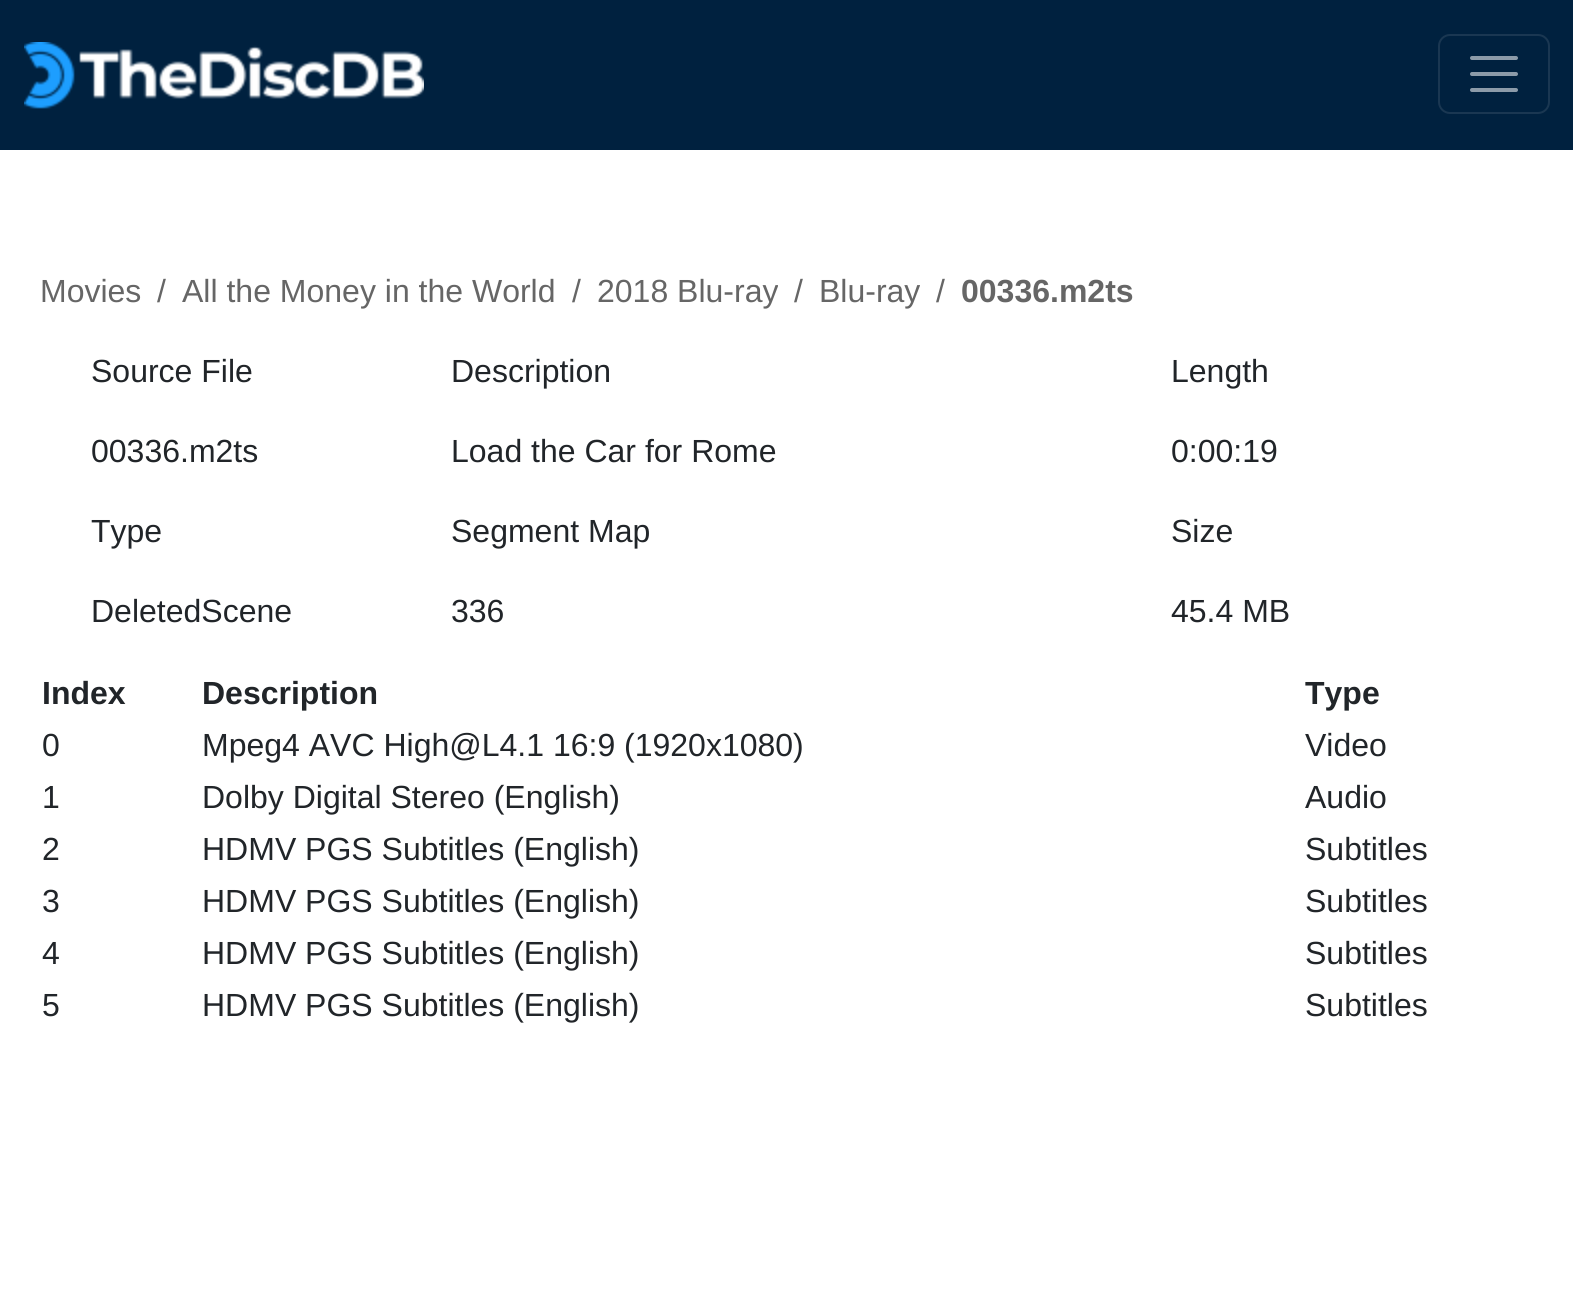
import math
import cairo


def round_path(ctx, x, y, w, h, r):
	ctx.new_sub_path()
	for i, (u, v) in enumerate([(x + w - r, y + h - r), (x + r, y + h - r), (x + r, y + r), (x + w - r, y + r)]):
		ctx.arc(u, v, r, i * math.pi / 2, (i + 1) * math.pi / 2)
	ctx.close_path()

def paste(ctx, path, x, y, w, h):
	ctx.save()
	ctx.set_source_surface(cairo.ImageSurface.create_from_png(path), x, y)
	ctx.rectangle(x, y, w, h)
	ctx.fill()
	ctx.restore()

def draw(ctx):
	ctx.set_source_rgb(1, 1, 1)
	ctx.paint()
	ctx.set_source_rgb(0, 0.129, 0.247)
	ctx.rectangle(0, 0, 1573, 150)
	ctx.fill()
	paste(ctx, 'media/1.png', 24, 42, 400, 67)
	round_path(ctx, 1439, 35, 110, 78, 11)
	ctx.set_source_rgb(0.102, 0.216, 0.322)
	ctx.stroke()
	ctx.new_path()
	ctx.move_to(1472, 58)
	ctx.line_to(1516, 58)
	ctx.move_to(1472, 74)
	ctx.line_to(1516, 74)
	ctx.move_to(1472, 90)
	ctx.line_to(1516, 90)
	ctx.set_source_rgb(0.549, 0.608, 0.663)
	ctx.set_line_width(4)
	ctx.set_line_cap(cairo.LINE_CAP_ROUND)
	ctx.stroke()
	ctx.select_font_face('Liberation Sans')
	ctx.set_font_size(32)
	ctx.set_source_rgb(0.4, 0.4, 0.4)
	for x, y, s in [
		(40, 302, 'Movies'),
		(157, 302, '/'),
		(182, 302, 'All the Money in the World'),
		(572, 302, '/'),
		(597, 302, '2018 Blu-ray'),
		(794, 302, '/'),
		(819, 302, 'Blu-ray'),
		(936, 302, '/'),
	]:
		ctx.move_to(x, y)
		ctx.show_text(s)
	ctx.select_font_face('Liberation Sans', cairo.FONT_SLANT_NORMAL, cairo.FONT_WEIGHT_BOLD)
	ctx.move_to(961, 302)
	ctx.show_text('00336.m2ts')
	ctx.select_font_face('Liberation Sans')
	ctx.set_source_rgb(0.129, 0.145, 0.161)
	for x, y, s in [
		(91, 382, 'Source File'),
		(91, 462, '00336.m2ts'),
		(451, 382, 'Description'),
		(451, 462, 'Load the Car for Rome'),
		(1171, 382, 'Length'),
		(1171, 462, '0:00:19'),
		(91, 542, 'Type'),
		(91, 622, 'DeletedScene'),
		(451, 542, 'Segment Map'),
		(451, 622, '336'),
		(1171, 542, 'Size'),
		(1171, 622, '45.4 MB'),
	]:
		ctx.move_to(x, y)
		ctx.show_text(s)
	ctx.select_font_face('Liberation Sans', cairo.FONT_SLANT_NORMAL, cairo.FONT_WEIGHT_BOLD)
	for x, y, s in [
		(42, 704, 'Index'),
		(202, 704, 'Description'),
		(1305, 704, 'Type'),
	]:
		ctx.move_to(x, y)
		ctx.show_text(s)
	ctx.select_font_face('Liberation Sans')
	for x, y, s in [
		(42, 756, '0'),
		(202, 756, 'Mpeg4 AVC High@L4.1 16:9 (1920x1080)'),
		(1305, 756, 'Video'),
		(42, 808, '1'),
		(202, 808, 'Dolby Digital Stereo (English)'),
		(1305, 808, 'Audio'),
		(42, 860, '2'),
		(202, 860, 'HDMV PGS Subtitles (English)'),
		(1305, 860, 'Subtitles'),
		(42, 912, '3'),
		(202, 912, 'HDMV PGS Subtitles (English)'),
		(1305, 912, 'Subtitles'),
		(42, 964, '4'),
		(202, 964, 'HDMV PGS Subtitles (English)'),
		(1305, 964, 'Subtitles'),
		(42, 1016, '5'),
		(202, 1016, 'HDMV PGS Subtitles (English)'),
		(1305, 1016, 'Subtitles'),
	]:
		ctx.move_to(x, y)
		ctx.show_text(s)


surface = cairo.ImageSurface(cairo.FORMAT_RGB24, 1573, 1293)
ctx = cairo.Context(surface)
options = cairo.FontOptions()
options.set_hint_metrics(cairo.HINT_METRICS_OFF)
options.set_hint_style(cairo.HINT_STYLE_NONE)
ctx.set_font_options(options)
ctx.set_miter_limit(4)
draw(ctx)
surface.write_to_png('image.png')
